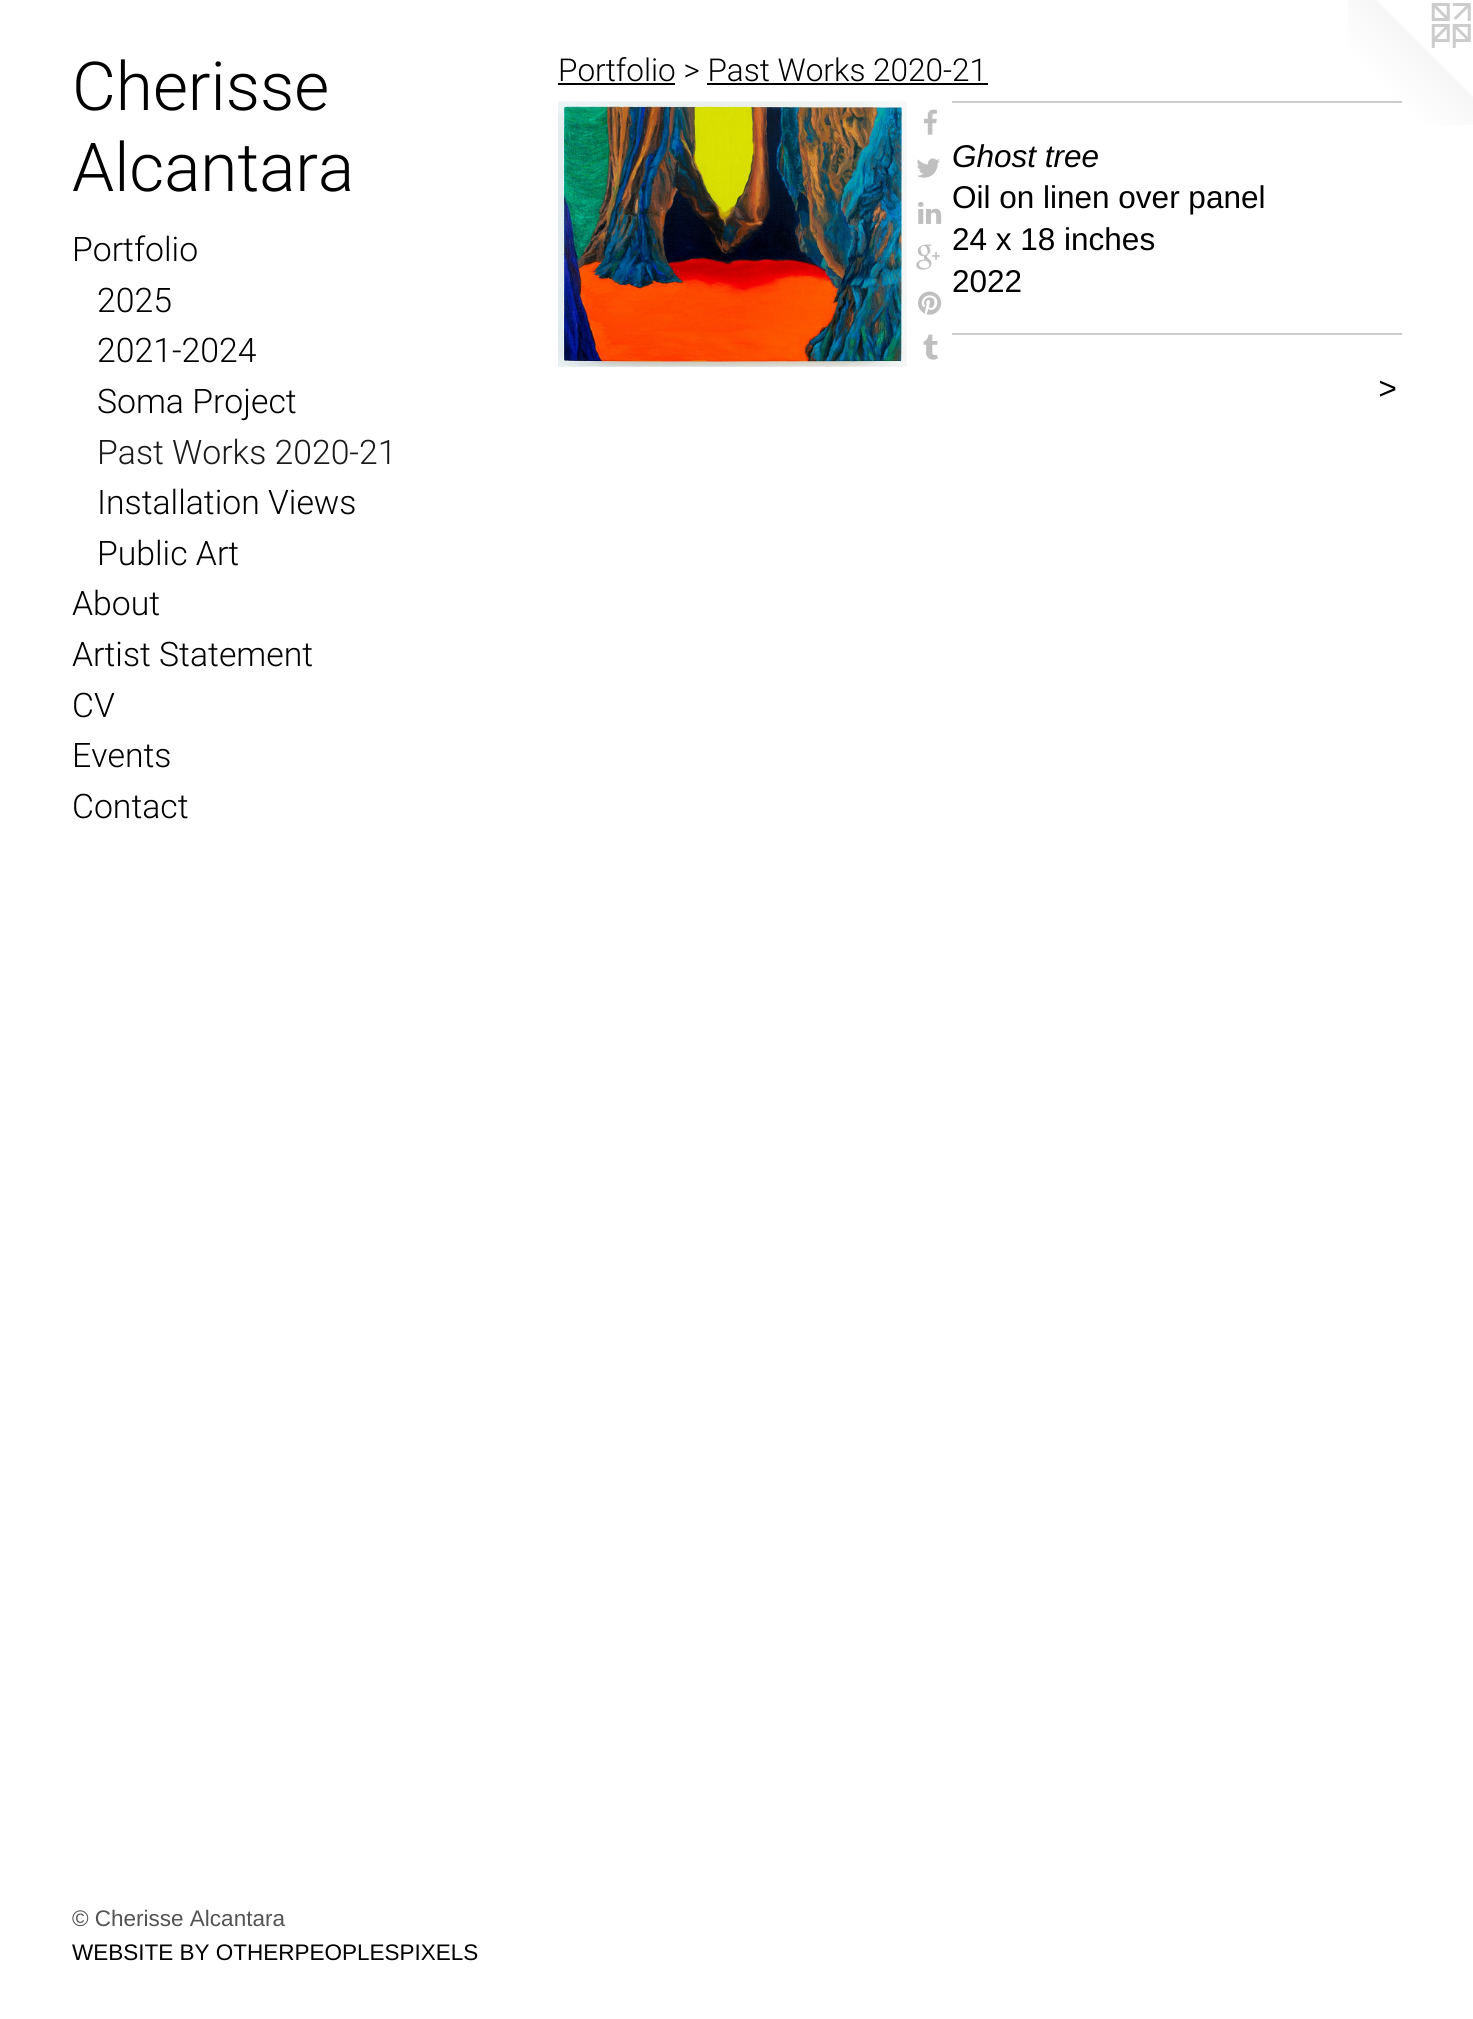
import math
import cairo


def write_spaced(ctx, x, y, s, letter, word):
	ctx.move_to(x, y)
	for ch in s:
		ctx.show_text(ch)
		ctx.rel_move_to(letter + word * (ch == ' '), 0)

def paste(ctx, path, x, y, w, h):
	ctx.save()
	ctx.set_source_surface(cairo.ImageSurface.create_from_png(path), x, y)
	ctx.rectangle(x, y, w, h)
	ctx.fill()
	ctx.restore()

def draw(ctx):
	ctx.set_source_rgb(1, 1, 1)
	ctx.paint()
	ctx.select_font_face('Roboto Light')
	ctx.set_font_size(67.5)
	ctx.set_source_rgb(0, 0, 0)
	ctx.move_to(72, 110)
	ctx.show_text('Cherisse')
	ctx.move_to(72, 191)
	ctx.show_text('Alcantara')
	ctx.set_font_size(33.75)
	for x, y, s in [
		(72, 261, 'Portfolio'),
		(97, 312, '2025'),
		(97, 362, '2021-2024'),
		(97, 413, 'Soma Project'),
	]:
		ctx.move_to(x, y)
		ctx.show_text(s)
	ctx.set_source_rgb(0.102, 0.102, 0.102)
	ctx.move_to(97, 464)
	ctx.show_text('Past Works 2020-21')
	ctx.set_source_rgb(0, 0, 0)
	for x, y, s in [
		(97, 514, 'Installation Views'),
		(97, 565, 'Public Art'),
		(72, 615, 'About'),
		(72, 666, 'Artist Statement'),
		(72, 717, 'CV'),
		(72, 767, 'Events'),
		(72, 818, 'Contact'),
	]:
		ctx.move_to(x, y)
		ctx.show_text(s)
	ctx.select_font_face('Liberation Sans')
	ctx.set_font_size(22.5)
	ctx.set_source_rgb(0.325, 0.325, 0.325)
	ctx.move_to(72, 1926)
	ctx.show_text('© Cherisse Alcantara')
	ctx.set_source_rgb(0, 0, 0)
	ctx.move_to(72, 1960)
	ctx.show_text('WEBSITE BY OTHERPEOPLESPIXELS')
	ctx.select_font_face('Roboto Light')
	ctx.set_font_size(31.5)
	ctx.move_to(558, 81)
	ctx.show_text('Portfolio > Past Works 2020-21')
	ctx.rectangle(558, 83, 117, 2)
	ctx.fill()
	ctx.rectangle(707, 83, 281, 2)
	ctx.fill()
	paste(ctx, 'media/1.png', 558, 101, 349, 266)
	paste(ctx, 'media/2.png', 924, 109, 13, 26)
	paste(ctx, 'media/3.png', 917, 158, 23, 20)
	paste(ctx, 'media/4.png', 918, 201, 24, 23)
	paste(ctx, 'media/5.png', 916, 244, 24, 26)
	paste(ctx, 'media/6.png', 918, 291, 24, 24)
	paste(ctx, 'media/7.png', 923, 334, 15, 26)
	paste(ctx, 'media/8.png', 1348, 0, 125, 125)
	ctx.set_source_rgb(0.8, 0.8, 0.8)
	ctx.rectangle(952, 101, 450, 2)
	ctx.fill()
	ctx.select_font_face('Liberation Sans', cairo.FONT_SLANT_ITALIC)
	ctx.set_source_rgb(0, 0, 0)
	ctx.move_to(952, 167)
	ctx.show_text('Ghost tree')
	ctx.select_font_face('Liberation Sans')
	for x, y, s in [
		(952, 208, 'Oil on linen over panel'),
		(952, 250, '24 x 18 inches'),
		(952, 292, '2022'),
	]:
		ctx.move_to(x, y)
		ctx.show_text(s)
	ctx.set_source_rgb(0.8, 0.8, 0.8)
	ctx.rectangle(952, 333, 450, 2)
	ctx.fill()
	ctx.select_font_face('Liberation Sans', cairo.FONT_SLANT_ITALIC)
	ctx.set_source_rgb(0, 0, 0)
	write_spaced(ctx, 1378, 399, '>', 2, 0)


surface = cairo.ImageSurface(cairo.FORMAT_RGB24, 1473, 2019)
ctx = cairo.Context(surface)
options = cairo.FontOptions()
options.set_hint_metrics(cairo.HINT_METRICS_OFF)
options.set_hint_style(cairo.HINT_STYLE_NONE)
ctx.set_font_options(options)
ctx.set_miter_limit(4)
draw(ctx)
surface.write_to_png('image.png')
